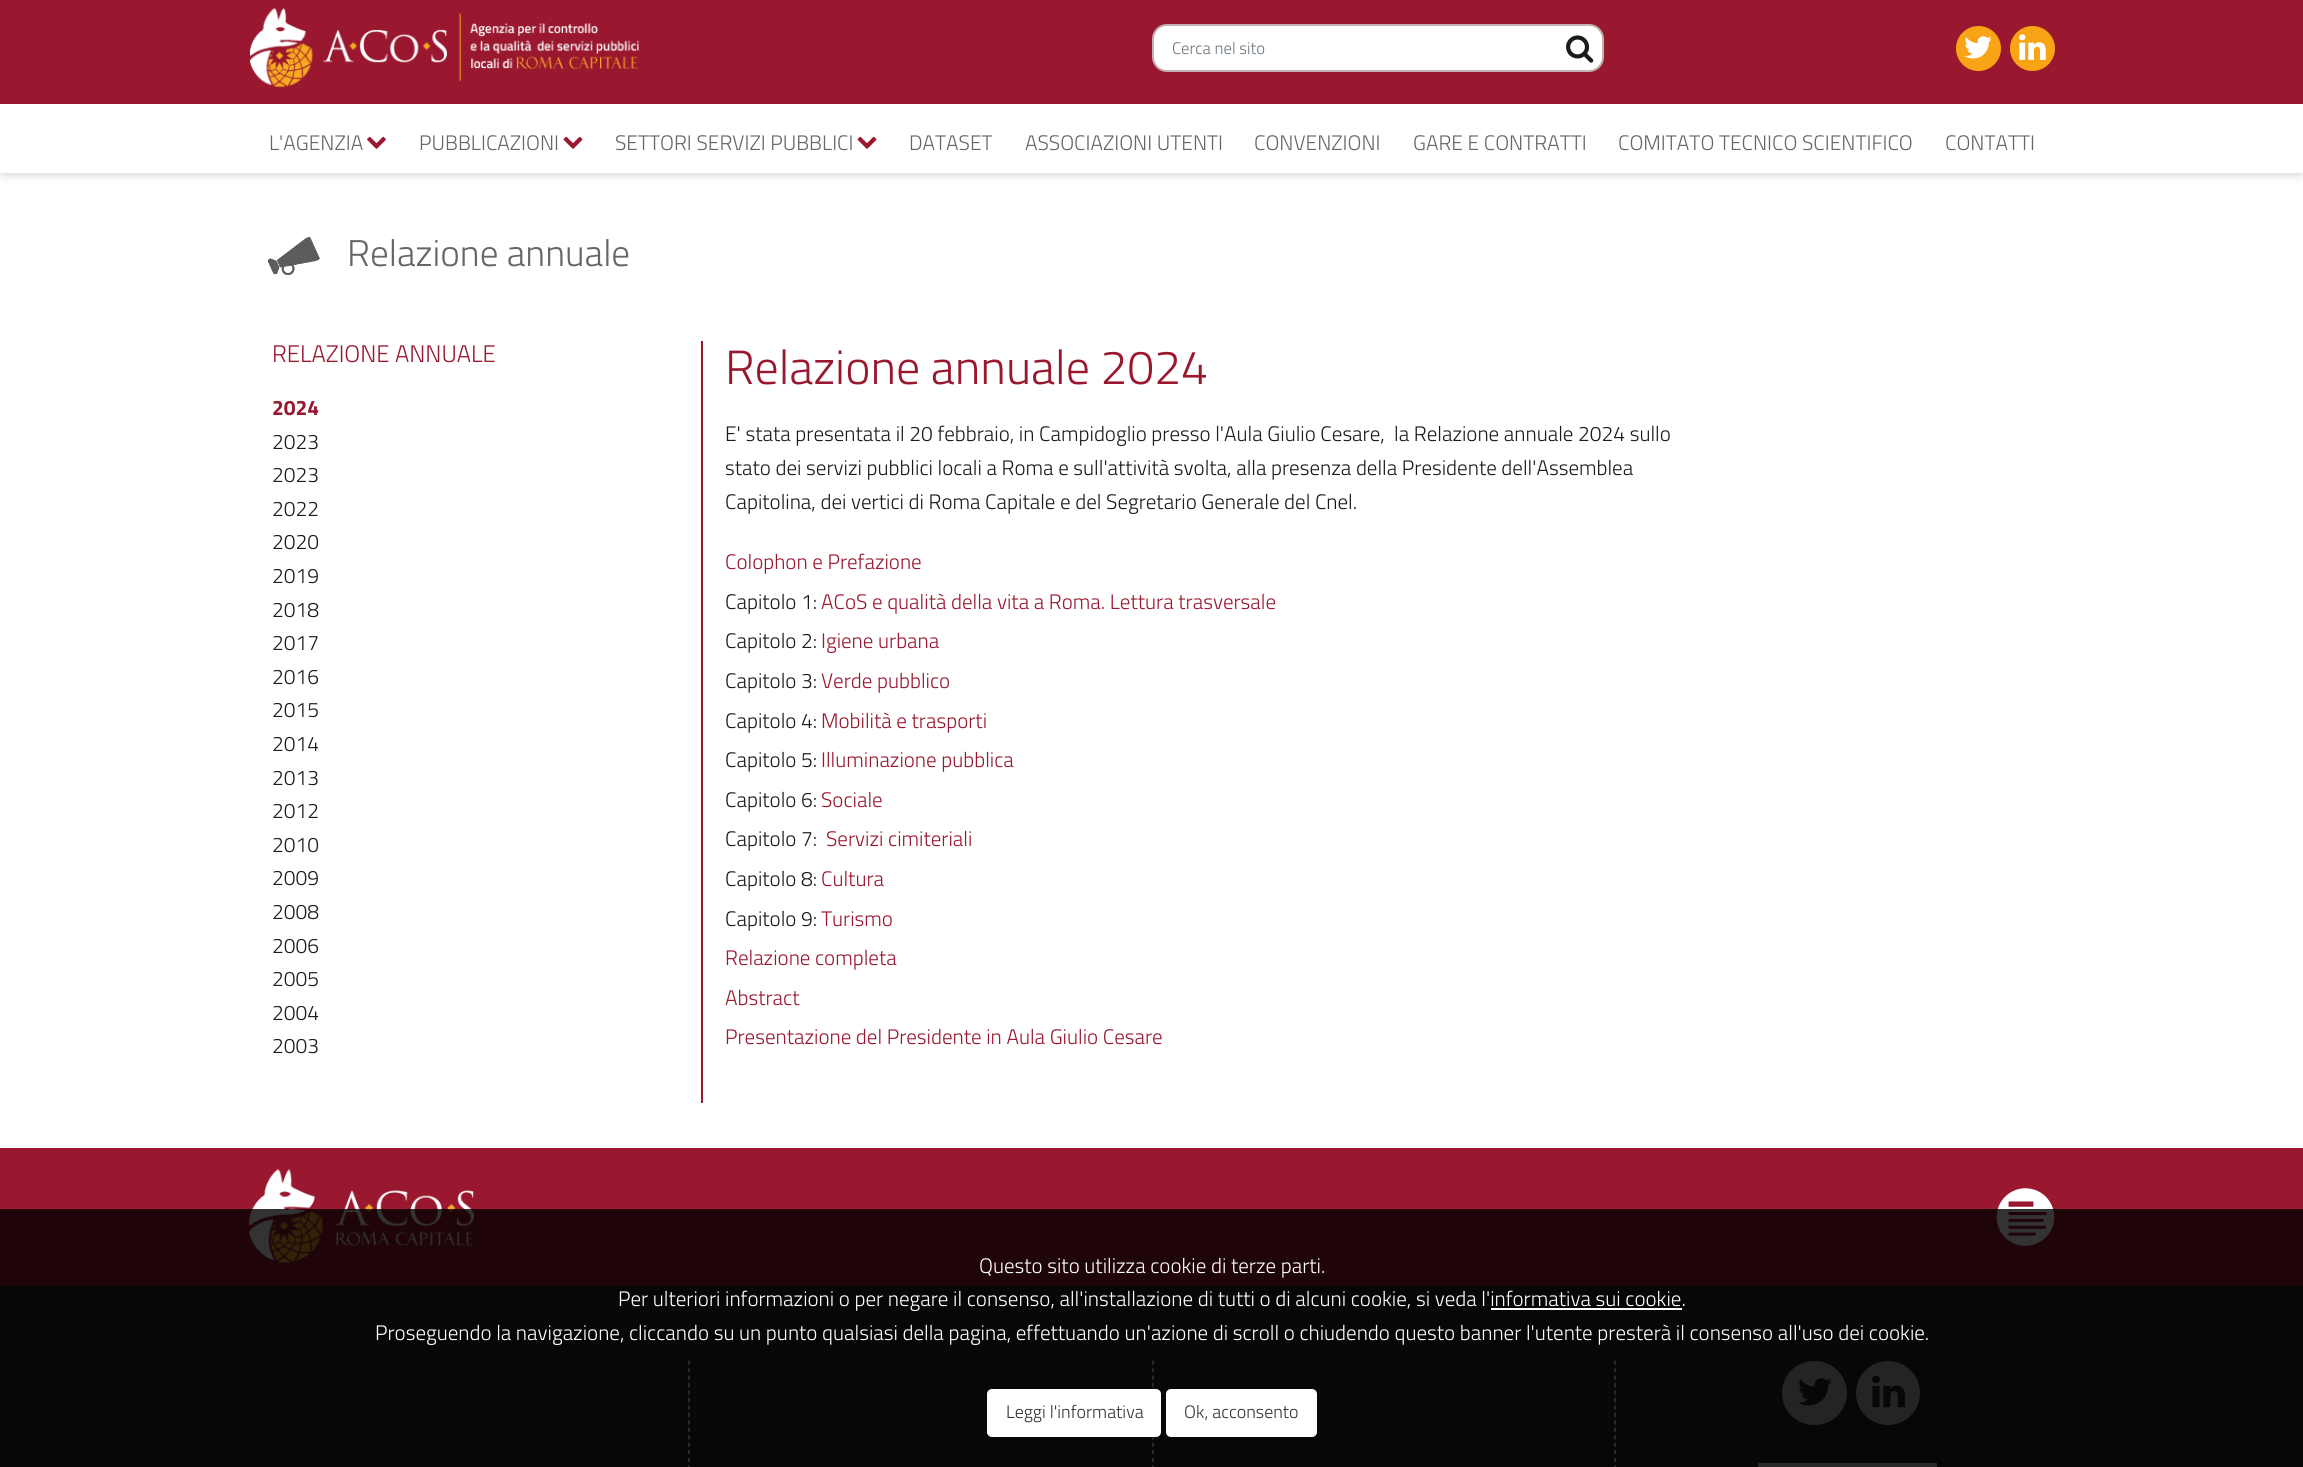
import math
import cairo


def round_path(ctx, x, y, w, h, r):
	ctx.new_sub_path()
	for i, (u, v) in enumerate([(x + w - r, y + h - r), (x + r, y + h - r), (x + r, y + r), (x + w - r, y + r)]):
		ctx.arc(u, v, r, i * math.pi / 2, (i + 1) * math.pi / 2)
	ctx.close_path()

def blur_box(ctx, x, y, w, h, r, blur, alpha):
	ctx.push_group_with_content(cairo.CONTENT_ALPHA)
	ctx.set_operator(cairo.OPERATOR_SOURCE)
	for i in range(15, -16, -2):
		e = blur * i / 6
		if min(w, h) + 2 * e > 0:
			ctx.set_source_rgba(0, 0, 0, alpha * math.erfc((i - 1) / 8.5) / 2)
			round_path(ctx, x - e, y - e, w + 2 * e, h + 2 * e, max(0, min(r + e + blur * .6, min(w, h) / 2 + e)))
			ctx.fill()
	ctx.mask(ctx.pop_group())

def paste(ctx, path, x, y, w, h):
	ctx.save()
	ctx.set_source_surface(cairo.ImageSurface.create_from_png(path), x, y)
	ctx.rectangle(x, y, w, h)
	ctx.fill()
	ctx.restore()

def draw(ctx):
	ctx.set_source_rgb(1, 1, 1)
	ctx.paint()
	ctx.set_source_rgb(0.8, 0.8, 0.8)
	blur_box(ctx, 3, 8, 2298, 166, 0, 4.5, 1)
	ctx.set_source_rgb(1, 1, 1)
	ctx.rectangle(0, 104, 2303, 69)
	ctx.fill()
	ctx.set_source_rgb(0.6, 0.094, 0.184)
	ctx.rectangle(0, 0, 2303, 104)
	ctx.fill()
	paste(ctx, 'media/1.png', 250, 8, 389, 80)
	ctx.set_source_rgb(1, 1, 1)
	round_path(ctx, 1153, 25, 450, 46, 14)
	ctx.fill_preserve()
	ctx.set_source_rgb(0.761, 0.698, 0.698)
	ctx.stroke()
	ctx.select_font_face('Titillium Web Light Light')
	ctx.set_font_size(16.75)
	ctx.set_source_rgb(0.424, 0.459, 0.49)
	ctx.move_to(1172, 54)
	ctx.show_text('Cerca nel sito')
	paste(ctx, 'media/2.png', 1566, 35, 28, 28)
	ctx.set_source_rgb(0.976, 0.643, 0.082)
	ctx.arc(1978.5, 48.5, 22.5, 0, 2 * math.pi)
	ctx.fill()
	paste(ctx, 'media/3.png', 1964, 36, 28, 23)
	ctx.arc(2032.5, 48.5, 22.5, 0, 2 * math.pi)
	ctx.fill()
	paste(ctx, 'media/4.png', 2019, 34, 27, 26)
	ctx.set_font_size(21)
	ctx.set_source_rgb(0.4, 0.4, 0.4)
	ctx.move_to(269, 150)
	ctx.show_text('L\'AGENZIA')
	paste(ctx, 'media/5.png', 367, 136, 19, 13)
	ctx.move_to(419, 150)
	ctx.show_text('PUBBLICAZIONI')
	paste(ctx, 'media/6.png', 563, 136, 20, 13)
	ctx.move_to(615, 150)
	ctx.show_text('SETTORI SERVIZI PUBBLICI')
	paste(ctx, 'media/6.png', 857, 136, 20, 13)
	for x, y, s in [
		(909, 150, 'DATASET'),
		(1025, 150, 'ASSOCIAZIONI UTENTI'),
		(1254, 150, 'CONVENZIONI'),
		(1413, 150, 'GARE E CONTRATTI'),
		(1618, 150, 'COMITATO TECNICO SCIENTIFICO'),
		(1945, 150, 'CONTATTI'),
	]:
		ctx.move_to(x, y)
		ctx.show_text(s)
	paste(ctx, 'media/7.png', 268, 237, 52, 38)
	ctx.set_font_size(37.25)
	ctx.move_to(347, 266)
	ctx.show_text('Relazione annuale')
	ctx.set_font_size(24)
	ctx.set_source_rgb(0.6, 0.094, 0.184)
	ctx.move_to(272, 362)
	ctx.show_text('RELAZIONE ANNUALE')
	ctx.select_font_face('Titillium Web', cairo.FONT_SLANT_NORMAL, cairo.FONT_WEIGHT_BOLD)
	ctx.set_font_size(21)
	ctx.move_to(272, 415)
	ctx.show_text('2024')
	ctx.select_font_face('Titillium Web Light Light')
	ctx.set_source_rgb(0.106, 0.106, 0.106)
	for x, y, s in [
		(272, 449, '2023'),
		(272, 482, '2023'),
		(272, 516, '2022'),
		(272, 549, '2020'),
		(272, 583, '2019'),
		(272, 617, '2018'),
		(272, 650, '2017'),
		(272, 684, '2016'),
		(272, 717, '2015'),
		(272, 751, '2014'),
		(272, 785, '2013'),
		(272, 818, '2012'),
		(272, 852, '2010'),
		(272, 885, '2009'),
		(272, 919, '2008'),
		(272, 953, '2006'),
		(272, 986, '2005'),
		(272, 1020, '2004'),
		(272, 1053, '2003'),
	]:
		ctx.move_to(x, y)
		ctx.show_text(s)
	ctx.set_source_rgb(0.6, 0.094, 0.184)
	ctx.rectangle(701, 341, 2, 762)
	ctx.fill()
	ctx.set_font_size(48)
	ctx.move_to(725, 384)
	ctx.show_text('Relazione annuale 2024')
	ctx.set_font_size(21)
	ctx.set_source_rgb(0.106, 0.106, 0.106)
	for x, y, s in [
		(725, 441, 'E\' stata presentata il 20 febbraio, in Campidoglio presso l\'Aula Giulio Cesare,  la Relazione annuale 2024 sullo'),
		(725, 475, 'stato dei servizi pubblici locali a Roma e sull\'attività svolta, alla presenza della Presidente dell\'Assemblea'),
		(725, 509, 'Capitolina, dei vertici di Roma Capitale e del Segretario Generale del Cnel.'),
	]:
		ctx.move_to(x, y)
		ctx.show_text(s)
	ctx.set_source_rgb(0.6, 0.094, 0.184)
	ctx.move_to(725, 569)
	ctx.show_text('Colophon e Prefazione')
	ctx.set_source_rgb(0.106, 0.106, 0.106)
	ctx.move_to(725, 609)
	ctx.show_text('Capitolo 1:')
	ctx.set_source_rgb(0.6, 0.094, 0.184)
	ctx.move_to(821, 609)
	ctx.show_text('ACoS e qualità della vita a Roma. Lettura trasversale')
	ctx.set_source_rgb(0.106, 0.106, 0.106)
	ctx.move_to(725, 648)
	ctx.show_text('Capitolo 2:')
	ctx.set_source_rgb(0.6, 0.094, 0.184)
	ctx.move_to(821, 648)
	ctx.show_text('Igiene urbana')
	ctx.set_source_rgb(0.106, 0.106, 0.106)
	ctx.move_to(725, 688)
	ctx.show_text('Capitolo 3:')
	ctx.set_source_rgb(0.6, 0.094, 0.184)
	ctx.move_to(821, 688)
	ctx.show_text('Verde pubblico')
	ctx.set_source_rgb(0.106, 0.106, 0.106)
	ctx.move_to(725, 728)
	ctx.show_text('Capitolo 4:')
	ctx.set_source_rgb(0.6, 0.094, 0.184)
	ctx.move_to(821, 728)
	ctx.show_text('Mobilità e trasporti')
	ctx.set_source_rgb(0.106, 0.106, 0.106)
	ctx.move_to(725, 767)
	ctx.show_text('Capitolo 5:')
	ctx.set_source_rgb(0.6, 0.094, 0.184)
	ctx.move_to(821, 767)
	ctx.show_text('Illuminazione pubblica')
	ctx.set_source_rgb(0.106, 0.106, 0.106)
	ctx.move_to(725, 807)
	ctx.show_text('Capitolo 6:')
	ctx.set_source_rgb(0.6, 0.094, 0.184)
	ctx.move_to(821, 807)
	ctx.show_text('Sociale')
	ctx.set_source_rgb(0.106, 0.106, 0.106)
	ctx.move_to(725, 846)
	ctx.show_text('Capitolo 7:')
	ctx.set_source_rgb(0.6, 0.094, 0.184)
	ctx.move_to(826, 846)
	ctx.show_text('Servizi cimiteriali')
	ctx.set_source_rgb(0.106, 0.106, 0.106)
	ctx.move_to(725, 886)
	ctx.show_text('Capitolo 8:')
	ctx.set_source_rgb(0.6, 0.094, 0.184)
	ctx.move_to(821, 886)
	ctx.show_text('Cultura')
	ctx.set_source_rgb(0.106, 0.106, 0.106)
	ctx.move_to(725, 926)
	ctx.show_text('Capitolo 9:')
	ctx.set_source_rgb(0.6, 0.094, 0.184)
	for x, y, s in [
		(821, 926, 'Turismo'),
		(725, 965, 'Relazione completa'),
		(725, 1005, 'Abstract'),
		(725, 1044, 'Presentazione del Presidente in Aula Giulio Cesare'),
	]:
		ctx.move_to(x, y)
		ctx.show_text(s)
	ctx.rectangle(0, 1148, 2303, 138)
	ctx.fill()
	paste(ctx, 'media/8.png', 249, 1169, 225, 94)
	paste(ctx, 'media/9.png', 1996, 1188, 59, 58)
	ctx.set_source_rgb(0.145, 0.145, 0.145)
	ctx.rectangle(0, 1286, 2303, 181)
	ctx.fill()
	ctx.new_path()
	ctx.move_to(689, 1360.5)
	ctx.line_to(689, 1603.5)
	ctx.set_source_rgb(1, 1, 1)
	ctx.set_line_width(1.5)
	ctx.set_dash([4.5, 2.96])
	ctx.stroke()
	ctx.new_path()
	ctx.move_to(1153, 1360.5)
	ctx.line_to(1153, 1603.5)
	ctx.stroke()
	ctx.new_path()
	ctx.move_to(1615, 1360.5)
	ctx.line_to(1615, 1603.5)
	ctx.stroke()
	ctx.set_source_rgb(0.702, 0.702, 0.702)
	round_path(ctx, 1782, 1361, 65, 64, 32)
	ctx.fill()
	paste(ctx, 'media/10.png', 1798, 1378, 34, 28)
	ctx.arc(1888, 1393, 32, 0, 2 * math.pi)
	ctx.fill()
	paste(ctx, 'media/11.png', 1872, 1375, 33, 33)
	ctx.set_source_rgb(0.8, 0.8, 0.8)
	ctx.rectangle(1758, 1463, 179, 4)
	ctx.fill()
	ctx.set_source_rgba(0, 0, 0, 0.8)
	ctx.rectangle(0, 1209, 2303, 258)
	ctx.fill()
	ctx.set_source_rgb(1, 1, 1)
	ctx.move_to(979, 1273)
	ctx.show_text('Questo sito utilizza cookie di terze parti.')
	ctx.move_to(618, 1306)
	ctx.show_text('Per ulteriori informazioni o per negare il consenso, all\'installazione di tutti o di alcuni cookie, si veda l\'informativa sui cookie.')
	ctx.rectangle(1491, 1308, 191, 2)
	ctx.fill()
	ctx.move_to(375, 1340)
	ctx.show_text('Proseguendo la navigazione, cliccando su un punto qualsiasi della pagina, effettuando un\'azione di scroll o chiudendo questo banner l\'utente presterà il consenso all\'uso dei cookie.')
	round_path(ctx, 987, 1389, 174, 48, 5)
	ctx.fill()
	ctx.set_font_size(18)
	ctx.set_source_rgb(0.2, 0.2, 0.2)
	ctx.move_to(1006, 1418)
	ctx.show_text('Leggi l\'informativa')
	ctx.set_source_rgb(1, 1, 1)
	round_path(ctx, 1166, 1389, 151, 48, 5)
	ctx.fill()
	ctx.set_source_rgb(0.2, 0.2, 0.2)
	ctx.move_to(1184, 1418)
	ctx.show_text('Ok, acconsento')


surface = cairo.ImageSurface(cairo.FORMAT_RGB24, 2303, 1467)
ctx = cairo.Context(surface)
options = cairo.FontOptions()
options.set_hint_metrics(cairo.HINT_METRICS_OFF)
options.set_hint_style(cairo.HINT_STYLE_NONE)
ctx.set_font_options(options)
ctx.set_miter_limit(4)
draw(ctx)
surface.write_to_png('image.png')
